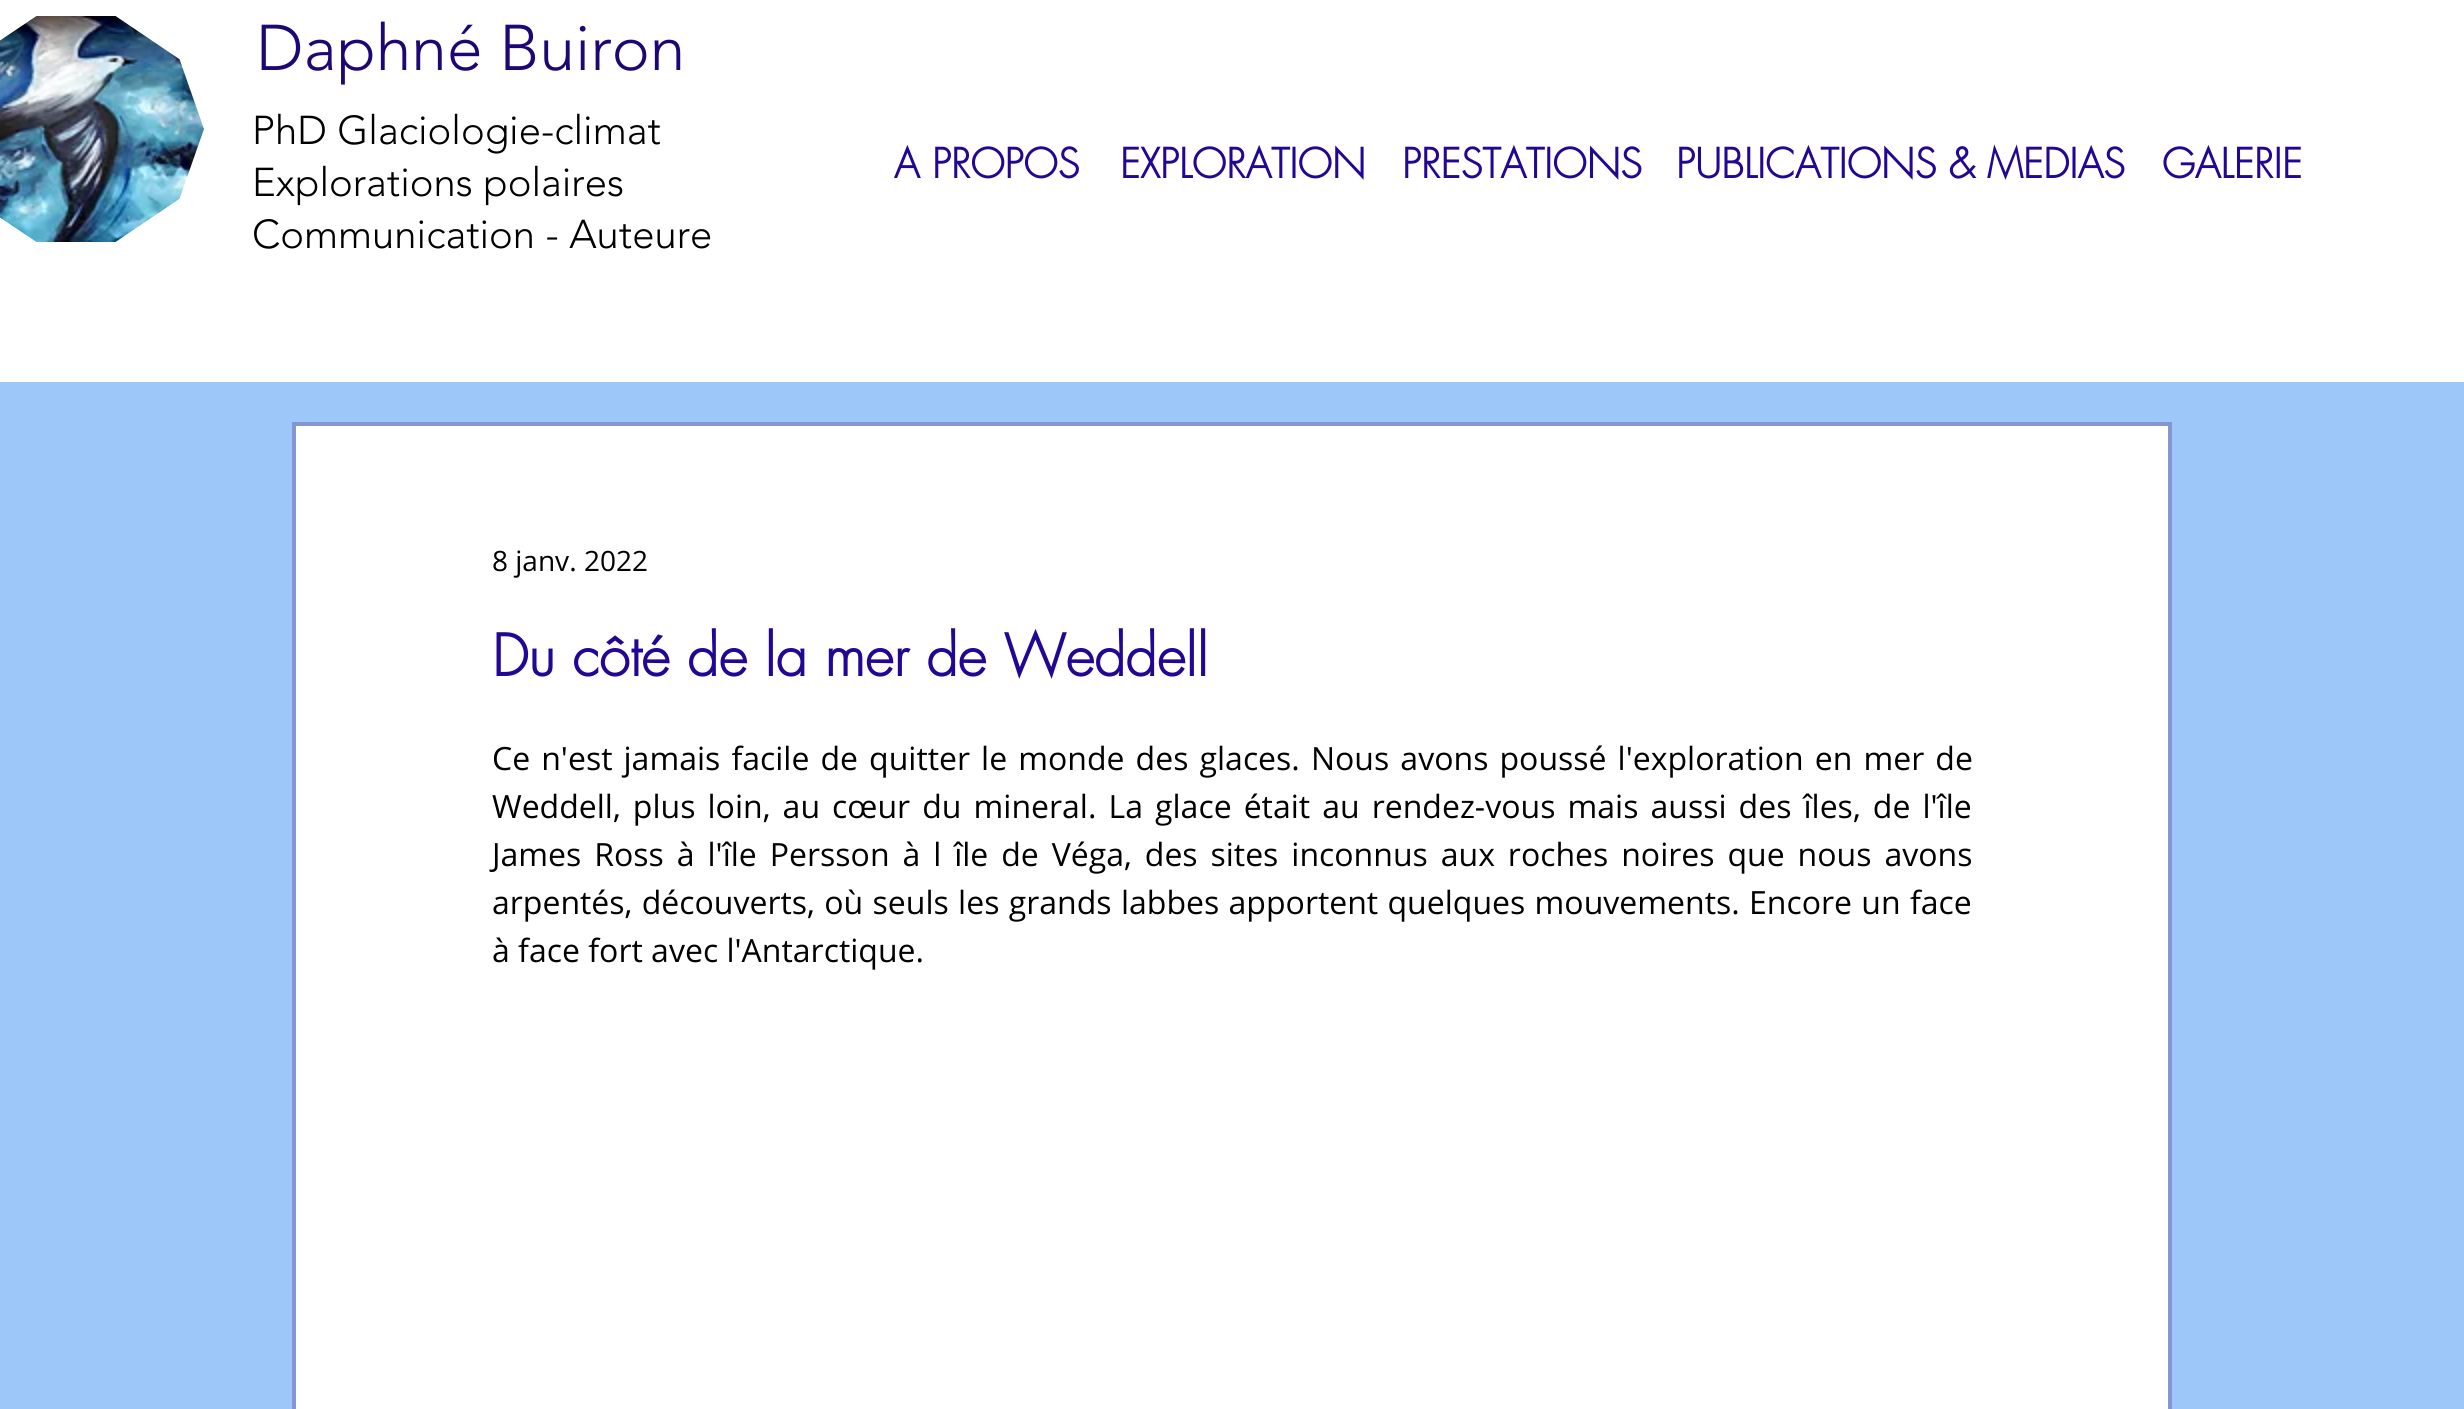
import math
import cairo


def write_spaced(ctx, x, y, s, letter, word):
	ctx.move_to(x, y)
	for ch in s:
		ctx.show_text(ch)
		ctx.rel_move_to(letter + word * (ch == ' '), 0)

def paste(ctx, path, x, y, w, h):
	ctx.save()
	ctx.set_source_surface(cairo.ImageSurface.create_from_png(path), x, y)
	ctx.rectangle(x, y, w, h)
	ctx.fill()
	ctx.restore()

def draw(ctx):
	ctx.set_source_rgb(1, 1, 1)
	ctx.paint()
	paste(ctx, 'media/1.png', 0, 16, 204, 226)
	ctx.select_font_face('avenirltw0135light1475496 Light')
	ctx.set_font_size(64)
	ctx.set_source_rgb(0.114, 0.031, 0.455)
	ctx.move_to(256, 70)
	ctx.show_text('Daphné Buiron')
	ctx.set_font_size(40)
	ctx.set_source_rgb(0, 0, 0)
	for x, y, s in [
		(252, 144, 'PhD Glaciologie-climat'),
		(252, 196, 'Explorations polaires'),
		(252, 248, 'Communication - Auteure'),
	]:
		ctx.move_to(x, y)
		ctx.show_text(s)
	ctx.select_font_face('futura', cairo.FONT_SLANT_NORMAL, cairo.FONT_WEIGHT_BOLD)
	ctx.set_source_rgb(0.133, 0.024, 0.58)
	for x, y, s in [
		(894, 178, 'A PROPOS'),
		(1120, 178, 'EXPLORATION'),
		(1402, 178, 'PRESTATIONS'),
		(1676, 178, 'PUBLICATIONS & MEDIAS'),
		(2162, 178, 'GALERIE'),
	]:
		ctx.move_to(x, y)
		ctx.show_text(s)
	ctx.set_source_rgb(0.612, 0.78, 0.969)
	ctx.rectangle(0, 382, 2464, 1027)
	ctx.fill()
	ctx.set_source_rgb(1, 1, 1)
	ctx.rectangle(294, 424, 1876, 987)
	ctx.fill_preserve()
	ctx.set_source_rgb(0.518, 0.588, 0.82)
	ctx.set_line_width(4)
	ctx.stroke()
	ctx.select_font_face('Open Sans')
	ctx.set_font_size(28)
	ctx.set_source_rgb(0, 0, 0)
	ctx.move_to(492, 571)
	ctx.show_text('8 janv. 2022')
	ctx.select_font_face('futura', cairo.FONT_SLANT_NORMAL, cairo.FONT_WEIGHT_BOLD)
	ctx.set_font_size(56)
	ctx.set_source_rgb(0.133, 0.024, 0.58)
	ctx.move_to(492, 676)
	ctx.show_text('Du côté de la mer de Weddell')
	ctx.select_font_face('Open Sans')
	ctx.set_font_size(32)
	ctx.set_source_rgb(0, 0, 0)
	write_spaced(ctx, 492, 770, 'Ce n\'est jamais facile de quitter le monde des glaces. Nous avons poussé l\'exploration en mer de', 0, 2.75)
	write_spaced(ctx, 492, 818, 'Weddell, plus loin, au cœur du mineral. La glace était au rendez-vous mais aussi des îles, de l\'île', 0, 3.75)
	write_spaced(ctx, 492, 866, 'James Ross à l\'île Persson à l île de Véga, des sites inconnus aux roches noires que nous avons', 0, 4.6)
	write_spaced(ctx, 492, 914, 'arpentés, découverts, où seuls les grands labbes apportent quelques mouvements. Encore un face', 0, 1)
	ctx.move_to(492, 962)
	ctx.show_text('à face fort avec l\'Antarctique.')


surface = cairo.ImageSurface(cairo.FORMAT_RGB24, 2464, 1409)
ctx = cairo.Context(surface)
options = cairo.FontOptions()
options.set_hint_metrics(cairo.HINT_METRICS_OFF)
options.set_hint_style(cairo.HINT_STYLE_NONE)
ctx.set_font_options(options)
ctx.set_miter_limit(4)
draw(ctx)
surface.write_to_png('image.png')
